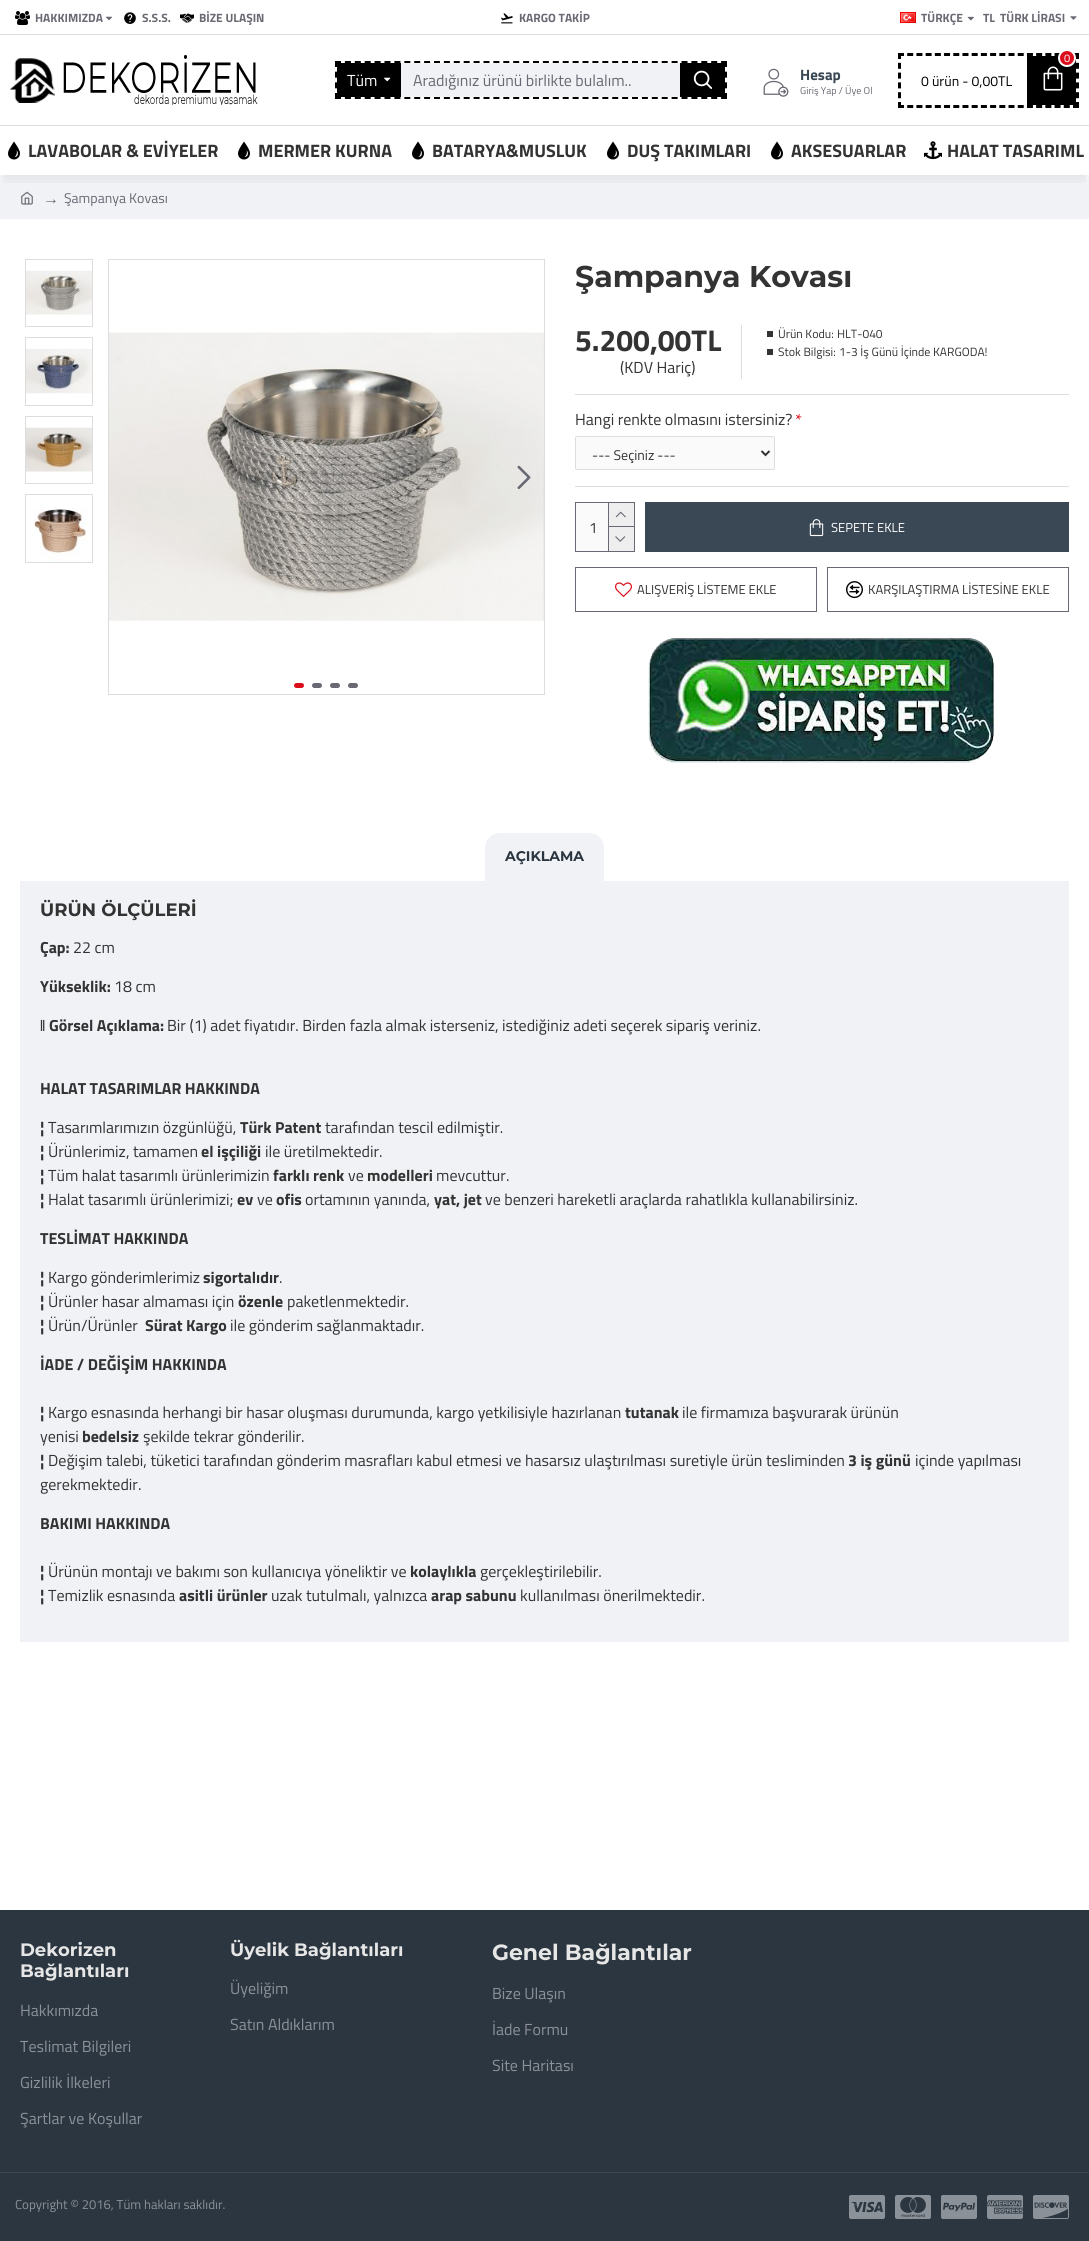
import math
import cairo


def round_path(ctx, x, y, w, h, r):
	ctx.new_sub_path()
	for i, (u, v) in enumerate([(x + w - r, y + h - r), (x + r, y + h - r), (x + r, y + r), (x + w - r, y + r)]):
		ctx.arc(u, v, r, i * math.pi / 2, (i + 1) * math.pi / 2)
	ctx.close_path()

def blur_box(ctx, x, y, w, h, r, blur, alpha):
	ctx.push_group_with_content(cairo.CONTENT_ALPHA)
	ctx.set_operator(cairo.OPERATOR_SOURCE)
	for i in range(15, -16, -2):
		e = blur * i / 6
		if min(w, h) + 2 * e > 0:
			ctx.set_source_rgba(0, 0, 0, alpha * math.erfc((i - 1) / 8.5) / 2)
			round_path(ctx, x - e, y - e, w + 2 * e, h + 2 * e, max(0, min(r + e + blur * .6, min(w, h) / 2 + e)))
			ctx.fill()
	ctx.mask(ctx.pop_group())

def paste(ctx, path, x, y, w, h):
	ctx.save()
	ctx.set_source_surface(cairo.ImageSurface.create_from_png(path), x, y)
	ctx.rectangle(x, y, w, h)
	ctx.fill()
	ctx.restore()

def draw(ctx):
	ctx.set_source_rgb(1, 1, 1)
	ctx.paint()
	ctx.set_source_rgb(0.941, 0.949, 0.961)
	ctx.rectangle(0, 175, 1089, 44)
	ctx.fill()
	paste(ctx, 'media/16.png', 21, 191, 12, 14)
	ctx.save()
	ctx.rectangle(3, 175, 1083, 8)
	ctx.clip()
	ctx.set_source_rgb(0, 0, 0)
	blur_box(ctx, 5, 10, 1079, 165, 0, 10, 0.1)
	ctx.restore()
	paste(ctx, 'media/1.png', 15, 11, 15, 14)
	ctx.select_font_face('Titillium Web', cairo.FONT_SLANT_NORMAL, cairo.FONT_WEIGHT_BOLD)
	ctx.set_font_size(12)
	ctx.set_source_rgb(0.412, 0.412, 0.451)
	ctx.move_to(35, 22)
	ctx.show_text('HAKKIMIZDA')
	paste(ctx, 'media/2.png', 105, 16, 8, 5)
	paste(ctx, 'media/3.png', 124, 12, 12, 12)
	ctx.move_to(142, 22)
	ctx.show_text('S.S.S.')
	paste(ctx, 'media/4.png', 180, 13, 14, 10)
	ctx.move_to(199, 22)
	ctx.show_text('BİZE ULAŞIN')
	paste(ctx, 'media/5.png', 501, 13, 12, 11)
	ctx.move_to(519, 22)
	ctx.show_text('KARGO TAKİP')
	paste(ctx, 'media/6.png', 900, 12, 16, 11)
	ctx.move_to(921, 22)
	ctx.show_text('TÜRKÇE')
	paste(ctx, 'media/7.png', 967, 16, 7, 5)
	ctx.move_to(983, 22)
	ctx.show_text('TL')
	ctx.move_to(1000, 22)
	ctx.show_text('TÜRK LİRASI')
	paste(ctx, 'media/8.png', 1070, 16, 7, 4)
	paste(ctx, 'media/9.png', 10, 55, 248, 50)
	ctx.new_path()
	ctx.move_to(335, 62)
	ctx.line_to(727, 62)
	ctx.set_source_rgb(0, 0, 0)
	ctx.set_dash([6, 3.9])
	ctx.stroke()
	ctx.new_path()
	ctx.move_to(726, 61)
	ctx.line_to(726, 99)
	ctx.set_dash([6, 4.67])
	ctx.stroke()
	ctx.new_path()
	ctx.move_to(335, 98)
	ctx.line_to(727, 98)
	ctx.set_dash([6, 3.9])
	ctx.stroke()
	ctx.new_path()
	ctx.move_to(336, 61)
	ctx.line_to(336, 99)
	ctx.set_dash([6, 4.67])
	ctx.stroke()
	ctx.rectangle(337, 63, 64, 34)
	ctx.fill()
	ctx.select_font_face('Titillium Web')
	ctx.set_font_size(16)
	ctx.set_source_rgb(1, 1, 1)
	ctx.move_to(347, 86)
	ctx.show_text('Tüm')
	paste(ctx, 'media/10.png', 384, 77, 7, 5)
	ctx.set_source_rgb(0.941, 0.949, 0.961)
	ctx.rectangle(401, 63, 279, 34)
	ctx.fill()
	ctx.set_source_rgb(0.412, 0.412, 0.451)
	ctx.move_to(413, 86)
	ctx.show_text('Aradığınız ürünü birlikte bulalım..')
	ctx.set_source_rgb(0, 0, 0)
	ctx.rectangle(680, 63, 45, 34)
	ctx.fill()
	paste(ctx, 'media/11.png', 693, 70, 20, 19)
	paste(ctx, 'media/12.png', 763, 68, 26, 29)
	ctx.select_font_face('Titillium Web', cairo.FONT_SLANT_NORMAL, cairo.FONT_WEIGHT_BOLD)
	ctx.set_font_size(15)
	ctx.set_source_rgb(0.227, 0.278, 0.329)
	ctx.move_to(800, 80)
	ctx.show_text('Hesap')
	ctx.save()
	ctx.rectangle(800, 64, 73, 32)
	ctx.clip()
	ctx.select_font_face('Titillium Web')
	ctx.set_font_size(10)
	ctx.set_source_rgb(0.412, 0.412, 0.451)
	ctx.move_to(800, 94)
	ctx.show_text('Giriş Yap / Üye Ol')
	ctx.restore()
	ctx.new_path()
	ctx.move_to(898, 54.5)
	ctx.line_to(1079, 54.5)
	ctx.set_source_rgb(0, 0, 0)
	ctx.set_line_width(3)
	ctx.set_dash([6, 3.21])
	ctx.stroke()
	ctx.new_path()
	ctx.move_to(1077.5, 53)
	ctx.line_to(1077.5, 108)
	ctx.set_dash([6, 3.8])
	ctx.stroke()
	ctx.new_path()
	ctx.move_to(898, 106.5)
	ctx.line_to(1079, 106.5)
	ctx.set_dash([6, 3.21])
	ctx.stroke()
	ctx.new_path()
	ctx.move_to(899.5, 53)
	ctx.line_to(899.5, 108)
	ctx.set_dash([6, 3.8])
	ctx.stroke()
	ctx.rectangle(1027, 56, 49, 49)
	ctx.fill()
	paste(ctx, 'media/13.png', 1043, 66, 20, 25)
	ctx.set_source_rgb(0.867, 0.055, 0.11)
	ctx.arc(1067, 58, 8, 0, 2 * math.pi)
	ctx.fill_preserve()
	ctx.set_source_rgb(1, 1, 1)
	ctx.set_line_width(2)
	ctx.set_dash([])
	ctx.stroke()
	ctx.select_font_face('Titillium Web')
	ctx.set_font_size(11)
	ctx.move_to(1064, 62)
	ctx.show_text('0')
	ctx.set_font_size(14)
	ctx.set_source_rgb(0, 0, 0)
	ctx.move_to(921, 86)
	ctx.show_text('0 ürün - 0,00TL')
	ctx.set_source_rgb(0.867, 0.867, 0.867)
	ctx.rectangle(0, 125, 1089, 1)
	ctx.fill()
	paste(ctx, 'media/14.png', 8, 141, 12, 19)
	ctx.select_font_face('Titillium Web', cairo.FONT_SLANT_NORMAL, cairo.FONT_WEIGHT_BOLD)
	ctx.set_font_size(18)
	ctx.set_source_rgb(0.2, 0.2, 0.2)
	ctx.move_to(28, 157)
	ctx.show_text('LAVABOLAR & EVİYELER')
	paste(ctx, 'media/14.png', 238, 141, 12, 19)
	ctx.move_to(258, 157)
	ctx.show_text('MERMER KURNA')
	paste(ctx, 'media/14.png', 412, 141, 12, 19)
	ctx.move_to(432, 157)
	ctx.show_text('BATARYA&MUSLUK')
	paste(ctx, 'media/14.png', 607, 141, 12, 19)
	ctx.move_to(627, 157)
	ctx.show_text('DUŞ TAKIMLARI')
	paste(ctx, 'media/14.png', 771, 141, 12, 19)
	ctx.move_to(791, 157)
	ctx.show_text('AKSESUARLAR')
	paste(ctx, 'media/15.png', 924, 141, 18, 19)
	ctx.move_to(947, 157)
	ctx.show_text('HALAT TASARIML')
	ctx.set_source_rgb(0.867, 0.867, 0.867)
	ctx.rectangle(0, 34, 1089, 1)
	ctx.fill()
	ctx.select_font_face('Liberation Serif')
	ctx.set_font_size(16)
	ctx.set_source_rgb(0.412, 0.412, 0.451)
	ctx.move_to(43, 204)
	ctx.show_text('→')
	ctx.select_font_face('Titillium Web')
	ctx.set_font_size(14)
	ctx.move_to(64, 203)
	ctx.show_text('Şampanya Kovası')
	ctx.rectangle(25.5, 259.5, 67, 67)
	ctx.set_source_rgb(0.867, 0.867, 0.867)
	ctx.set_line_width(1)
	ctx.stroke()
	paste(ctx, 'media/17.png', 26, 270, 66, 45)
	ctx.rectangle(25.5, 337.5, 67, 68)
	ctx.stroke()
	paste(ctx, 'media/18.png', 26, 349, 66, 45)
	ctx.rectangle(25.5, 416.5, 67, 67)
	ctx.stroke()
	paste(ctx, 'media/19.png', 26, 427, 66, 45)
	ctx.rectangle(25.5, 494.5, 67, 68)
	ctx.stroke()
	paste(ctx, 'media/20.png', 33, 509, 59, 53)
	ctx.rectangle(108.5, 259.5, 436, 435)
	ctx.stroke()
	paste(ctx, 'media/21.png', 109, 332, 434, 289)
	paste(ctx, 'media/22.png', 543, 332, 1, 289)
	paste(ctx, 'media/23.png', 517, 465, 14, 25)
	ctx.set_source_rgb(0.867, 0.055, 0.11)
	round_path(ctx, 294, 683, 10, 5, 2.5)
	ctx.fill()
	ctx.set_source_rgb(0.412, 0.412, 0.451)
	round_path(ctx, 312, 683, 10, 5, 2.5)
	ctx.fill()
	round_path(ctx, 330, 683, 10, 5, 2.5)
	ctx.fill()
	round_path(ctx, 348, 683, 10, 5, 2.5)
	ctx.fill()
	ctx.select_font_face('Montserrat', cairo.FONT_SLANT_NORMAL, cairo.FONT_WEIGHT_BOLD)
	ctx.set_font_size(30)
	ctx.set_source_rgb(0.2, 0.2, 0.2)
	ctx.move_to(575, 287)
	ctx.show_text('Şampanya Kovası')
	ctx.select_font_face('Titillium Web', cairo.FONT_SLANT_NORMAL, cairo.FONT_WEIGHT_BOLD)
	ctx.move_to(575, 351)
	ctx.show_text('5.200,00TL')
	ctx.select_font_face('Titillium Web')
	ctx.set_font_size(16)
	ctx.move_to(620, 373)
	ctx.show_text('(KDV Hariç)')
	ctx.set_source_rgb(0.867, 0.867, 0.867)
	ctx.rectangle(741, 325, 1, 54)
	ctx.fill()
	ctx.set_source_rgb(0.2, 0.2, 0.2)
	ctx.rectangle(767, 331, 6, 6)
	ctx.fill()
	ctx.set_font_size(12)
	ctx.move_to(778, 338)
	ctx.show_text('Ürün Kodu:')
	ctx.move_to(837, 338)
	ctx.show_text('HLT-040')
	ctx.rectangle(767, 349, 6, 6)
	ctx.fill()
	ctx.move_to(778, 356)
	ctx.show_text('Stok Bilgisi:')
	ctx.move_to(839, 356)
	ctx.show_text('1-3 İş Günü İçinde KARGODA!')
	ctx.set_source_rgb(0.867, 0.867, 0.867)
	ctx.rectangle(575, 394, 494, 1)
	ctx.fill()
	ctx.rectangle(575, 486, 494, 1)
	ctx.fill()
	ctx.set_font_size(16)
	ctx.set_source_rgb(0.2, 0.2, 0.2)
	ctx.move_to(575, 425)
	ctx.show_text('Hangi renkte olmasını istersiniz?')
	ctx.set_font_size(17)
	ctx.set_source_rgb(0.867, 0.055, 0.11)
	ctx.move_to(795, 426)
	ctx.show_text('*')
	ctx.set_source_rgb(0.98, 0.98, 0.98)
	round_path(ctx, 575.5, 436.5, 199, 33, 1.5)
	ctx.fill_preserve()
	ctx.set_source_rgb(0.867, 0.867, 0.867)
	ctx.stroke()
	ctx.new_path()
	ctx.move_to(761.5, 451)
	ctx.line_to(765.5, 455)
	ctx.line_to(769.5, 451)
	ctx.set_source_rgb(0.2, 0.2, 0.2)
	ctx.set_line_width(2)
	ctx.stroke()
	ctx.set_font_size(14)
	ctx.move_to(592, 460)
	ctx.show_text('--- Seçiniz ---')
	ctx.rectangle(575.5, 502.5, 59, 49)
	ctx.set_source_rgb(0.412, 0.412, 0.451)
	ctx.set_line_width(1)
	ctx.stroke()
	ctx.set_source_rgb(0.98, 0.98, 0.98)
	ctx.rectangle(576, 503, 32, 48)
	ctx.fill()
	ctx.set_font_size(15)
	ctx.set_source_rgb(0.2, 0.2, 0.2)
	ctx.move_to(589, 533)
	ctx.show_text('1')
	ctx.set_source_rgb(0.412, 0.412, 0.451)
	ctx.rectangle(608, 503, 1, 48)
	ctx.fill()
	ctx.set_source_rgb(0.933, 0.933, 0.933)
	ctx.rectangle(609, 503, 25, 23)
	ctx.fill()
	ctx.set_source_rgb(0.412, 0.412, 0.451)
	ctx.rectangle(609, 526, 25, 1)
	ctx.fill()
	paste(ctx, 'media/24.png', 615, 511, 11, 7)
	ctx.set_source_rgb(0.933, 0.933, 0.933)
	ctx.rectangle(609, 527, 25, 24)
	ctx.fill()
	paste(ctx, 'media/25.png', 615, 536, 11, 6)
	ctx.set_source_rgb(0.227, 0.278, 0.329)
	ctx.rectangle(645, 502, 424, 50)
	ctx.fill()
	paste(ctx, 'media/26.png', 809, 519, 15, 18)
	ctx.set_font_size(13)
	ctx.set_source_rgb(1, 1, 1)
	ctx.move_to(831, 532)
	ctx.show_text('SEPETE EKLE')
	ctx.rectangle(575.5, 567.5, 241, 44)
	ctx.set_source_rgb(0.412, 0.412, 0.451)
	ctx.stroke()
	paste(ctx, 'media/27.png', 615, 582, 17, 15)
	ctx.set_source_rgb(0.2, 0.2, 0.2)
	ctx.move_to(637, 594)
	ctx.show_text('ALIŞVERİŞ LİSTEME EKLE')
	ctx.rectangle(827.5, 567.5, 241, 44)
	ctx.set_source_rgb(0.412, 0.412, 0.451)
	ctx.stroke()
	paste(ctx, 'media/28.png', 846, 581, 17, 18)
	ctx.set_source_rgb(0.2, 0.2, 0.2)
	ctx.move_to(868, 594)
	ctx.show_text('KARŞILAŞTIRMA LİSTESİNE EKLE')
	paste(ctx, 'media/29.png', 648, 637, 346, 126)
	ctx.set_source_rgb(0.941, 0.949, 0.961)
	ctx.new_path()
	ctx.move_to(500, 833)
	ctx.line_to(589, 833)
	ctx.curve_to(597.5, 833, 604, 839.5, 604, 848)
	ctx.line_to(604, 881)
	ctx.line_to(485, 881)
	ctx.line_to(485, 848)
	ctx.curve_to(485, 839.5, 491.5, 833, 500, 833)
	ctx.close_path()
	ctx.fill()
	ctx.select_font_face('Montserrat', cairo.FONT_SLANT_NORMAL, cairo.FONT_WEIGHT_BOLD)
	ctx.set_font_size(14)
	ctx.set_source_rgb(0.173, 0.212, 0.251)
	ctx.move_to(505, 861)
	ctx.show_text('AÇIKLAMA')
	ctx.set_source_rgb(0.941, 0.949, 0.961)
	ctx.rectangle(20, 881, 1049, 761)
	ctx.fill()
	ctx.set_font_size(18)
	ctx.set_source_rgb(0.2, 0.2, 0.2)
	ctx.move_to(40, 916)
	ctx.show_text('ÜRÜN ÖLÇÜLERİ')
	ctx.select_font_face('Titillium Web', cairo.FONT_SLANT_NORMAL, cairo.FONT_WEIGHT_BOLD)
	ctx.set_font_size(16)
	ctx.move_to(40, 953)
	ctx.show_text('Çap:')
	ctx.select_font_face('Titillium Web')
	ctx.move_to(73, 953)
	ctx.show_text('22 cm')
	ctx.select_font_face('Titillium Web', cairo.FONT_SLANT_NORMAL, cairo.FONT_WEIGHT_BOLD)
	ctx.move_to(40, 992)
	ctx.show_text('Yükseklik:')
	ctx.select_font_face('Titillium Web')
	ctx.move_to(114, 992)
	ctx.show_text('18 cm')
	ctx.select_font_face('Liberation Serif', cairo.FONT_SLANT_NORMAL, cairo.FONT_WEIGHT_BOLD)
	ctx.move_to(40, 1031)
	ctx.show_text('‖')
	ctx.select_font_face('Titillium Web', cairo.FONT_SLANT_NORMAL, cairo.FONT_WEIGHT_BOLD)
	ctx.move_to(49, 1031)
	ctx.show_text('Görsel Açıklama:')
	ctx.select_font_face('Titillium Web')
	ctx.move_to(167, 1031)
	ctx.show_text('Bir (1) adet fiyatıdır. Birden fazla almak isterseniz, istediğiniz adeti seçerek sipariş veriniz.')
	ctx.select_font_face('Titillium Web', cairo.FONT_SLANT_NORMAL, cairo.FONT_WEIGHT_BOLD)
	ctx.move_to(40, 1094)
	ctx.show_text('HALAT TASARIMLAR HAKKINDA')
	ctx.move_to(40, 1133)
	ctx.show_text('¦')
	ctx.select_font_face('Titillium Web')
	ctx.move_to(48, 1133)
	ctx.show_text('Tasarımlarımızın özgünlüğü,')
	ctx.select_font_face('Titillium Web', cairo.FONT_SLANT_NORMAL, cairo.FONT_WEIGHT_BOLD)
	ctx.move_to(240, 1133)
	ctx.show_text('Türk Patent')
	ctx.select_font_face('Titillium Web')
	ctx.move_to(325, 1133)
	ctx.show_text('tarafından tescil edilmiştir.')
	ctx.select_font_face('Titillium Web', cairo.FONT_SLANT_NORMAL, cairo.FONT_WEIGHT_BOLD)
	ctx.move_to(40, 1157)
	ctx.show_text('¦')
	ctx.select_font_face('Titillium Web')
	ctx.move_to(48, 1157)
	ctx.show_text('Ürünlerimiz, tamamen')
	ctx.select_font_face('Titillium Web', cairo.FONT_SLANT_NORMAL, cairo.FONT_WEIGHT_BOLD)
	ctx.move_to(201, 1157)
	ctx.show_text('el işçiliği')
	ctx.select_font_face('Titillium Web')
	ctx.move_to(265, 1157)
	ctx.show_text('ile üretilmektedir.')
	ctx.select_font_face('Titillium Web', cairo.FONT_SLANT_NORMAL, cairo.FONT_WEIGHT_BOLD)
	ctx.move_to(40, 1181)
	ctx.show_text('¦')
	ctx.select_font_face('Titillium Web')
	ctx.move_to(48, 1181)
	ctx.show_text('Tüm halat tasarımlı ürünlerimizin')
	ctx.select_font_face('Titillium Web', cairo.FONT_SLANT_NORMAL, cairo.FONT_WEIGHT_BOLD)
	ctx.move_to(273, 1181)
	ctx.show_text('farklı renk')
	ctx.select_font_face('Titillium Web')
	ctx.move_to(348, 1181)
	ctx.show_text('ve')
	ctx.select_font_face('Titillium Web', cairo.FONT_SLANT_NORMAL, cairo.FONT_WEIGHT_BOLD)
	ctx.move_to(367, 1181)
	ctx.show_text('modelleri')
	ctx.select_font_face('Titillium Web')
	ctx.move_to(436, 1181)
	ctx.show_text('mevcuttur.')
	ctx.select_font_face('Titillium Web', cairo.FONT_SLANT_NORMAL, cairo.FONT_WEIGHT_BOLD)
	ctx.move_to(40, 1205)
	ctx.show_text('¦')
	ctx.select_font_face('Titillium Web')
	ctx.move_to(48, 1205)
	ctx.show_text('Halat tasarımlı ürünlerimizi;')
	ctx.select_font_face('Titillium Web', cairo.FONT_SLANT_NORMAL, cairo.FONT_WEIGHT_BOLD)
	ctx.move_to(237, 1205)
	ctx.show_text('ev')
	ctx.select_font_face('Titillium Web')
	ctx.move_to(257, 1205)
	ctx.show_text('ve')
	ctx.select_font_face('Titillium Web', cairo.FONT_SLANT_NORMAL, cairo.FONT_WEIGHT_BOLD)
	ctx.move_to(276, 1205)
	ctx.show_text('ofis')
	ctx.select_font_face('Titillium Web')
	ctx.move_to(305, 1205)
	ctx.show_text('ortamının yanında,')
	ctx.select_font_face('Titillium Web', cairo.FONT_SLANT_NORMAL, cairo.FONT_WEIGHT_BOLD)
	ctx.move_to(434, 1205)
	ctx.show_text('yat, jet')
	ctx.select_font_face('Titillium Web')
	ctx.move_to(485, 1205)
	ctx.show_text('ve benzeri hareketli araçlarda rahatlıkla kullanabilirsiniz.')
	ctx.select_font_face('Titillium Web', cairo.FONT_SLANT_NORMAL, cairo.FONT_WEIGHT_BOLD)
	ctx.move_to(40, 1244)
	ctx.show_text('TESLİMAT HAKKINDA')
	ctx.move_to(40, 1283)
	ctx.show_text('¦')
	ctx.select_font_face('Titillium Web')
	ctx.move_to(48, 1283)
	ctx.show_text('Kargo gönderimlerimiz')
	ctx.select_font_face('Titillium Web', cairo.FONT_SLANT_NORMAL, cairo.FONT_WEIGHT_BOLD)
	ctx.move_to(203, 1283)
	ctx.show_text('sigortalıdır')
	ctx.select_font_face('Titillium Web')
	ctx.move_to(279, 1283)
	ctx.show_text('.')
	ctx.select_font_face('Titillium Web', cairo.FONT_SLANT_NORMAL, cairo.FONT_WEIGHT_BOLD)
	ctx.move_to(40, 1307)
	ctx.show_text('¦')
	ctx.select_font_face('Titillium Web')
	ctx.move_to(48, 1307)
	ctx.show_text('Ürünler hasar almaması için')
	ctx.select_font_face('Titillium Web', cairo.FONT_SLANT_NORMAL, cairo.FONT_WEIGHT_BOLD)
	ctx.move_to(238, 1307)
	ctx.show_text('özenle')
	ctx.select_font_face('Titillium Web')
	ctx.move_to(287, 1307)
	ctx.show_text('paketlenmektedir.')
	ctx.select_font_face('Titillium Web', cairo.FONT_SLANT_NORMAL, cairo.FONT_WEIGHT_BOLD)
	ctx.move_to(40, 1331)
	ctx.show_text('¦')
	ctx.select_font_face('Titillium Web')
	ctx.move_to(48, 1331)
	ctx.show_text('Ürün/Ürünler')
	ctx.select_font_face('Titillium Web', cairo.FONT_SLANT_NORMAL, cairo.FONT_WEIGHT_BOLD)
	ctx.move_to(145, 1331)
	ctx.show_text('Sürat Kargo')
	ctx.select_font_face('Titillium Web')
	ctx.move_to(230, 1331)
	ctx.show_text('ile gönderim sağlanmaktadır.')
	ctx.select_font_face('Titillium Web', cairo.FONT_SLANT_NORMAL, cairo.FONT_WEIGHT_BOLD)
	ctx.move_to(40, 1370)
	ctx.show_text('İADE / DEĞİŞİM HAKKINDA')
	ctx.move_to(40, 1418)
	ctx.show_text('¦')
	ctx.select_font_face('Titillium Web')
	ctx.move_to(48, 1418)
	ctx.show_text('Kargo esnasında herhangi bir hasar oluşması durumunda, kargo yetkilisiyle hazırlanan')
	ctx.select_font_face('Titillium Web', cairo.FONT_SLANT_NORMAL, cairo.FONT_WEIGHT_BOLD)
	ctx.move_to(625, 1418)
	ctx.show_text('tutanak')
	ctx.select_font_face('Titillium Web')
	ctx.move_to(682, 1418)
	ctx.show_text('ile firmamıza başvurarak ürünün')
	ctx.move_to(40, 1442)
	ctx.show_text('yenisi')
	ctx.select_font_face('Titillium Web', cairo.FONT_SLANT_NORMAL, cairo.FONT_WEIGHT_BOLD)
	ctx.move_to(82, 1442)
	ctx.show_text('bedelsiz')
	ctx.select_font_face('Titillium Web')
	ctx.move_to(143, 1442)
	ctx.show_text('şekilde tekrar gönderilir.')
	ctx.select_font_face('Titillium Web', cairo.FONT_SLANT_NORMAL, cairo.FONT_WEIGHT_BOLD)
	ctx.move_to(40, 1466)
	ctx.show_text('¦')
	ctx.select_font_face('Titillium Web')
	ctx.move_to(48, 1466)
	ctx.show_text('Değişim talebi, tüketici tarafından gönderim masrafları kabul etmesi ve hasarsız ulaştırılması suretiyle ürün tesliminden')
	ctx.select_font_face('Titillium Web', cairo.FONT_SLANT_NORMAL, cairo.FONT_WEIGHT_BOLD)
	ctx.move_to(848, 1466)
	ctx.show_text('3 iş günü')
	ctx.select_font_face('Titillium Web')
	ctx.move_to(915, 1466)
	ctx.show_text('içinde yapılması')
	ctx.move_to(40, 1490)
	ctx.show_text('gerekmektedir.')
	ctx.select_font_face('Titillium Web', cairo.FONT_SLANT_NORMAL, cairo.FONT_WEIGHT_BOLD)
	ctx.move_to(40, 1529)
	ctx.show_text('BAKIMI HAKKINDA')
	ctx.move_to(40, 1577)
	ctx.show_text('¦')
	ctx.select_font_face('Titillium Web')
	ctx.move_to(48, 1577)
	ctx.show_text('Ürünün montajı ve bakımı son kullanıcıya yöneliktir ve')
	ctx.select_font_face('Titillium Web', cairo.FONT_SLANT_NORMAL, cairo.FONT_WEIGHT_BOLD)
	ctx.move_to(410, 1577)
	ctx.show_text('kolaylıkla')
	ctx.select_font_face('Titillium Web')
	ctx.move_to(480, 1577)
	ctx.show_text('gerçekleştirilebilir.')
	ctx.select_font_face('Titillium Web', cairo.FONT_SLANT_NORMAL, cairo.FONT_WEIGHT_BOLD)
	ctx.move_to(40, 1601)
	ctx.show_text('¦')
	ctx.select_font_face('Titillium Web')
	ctx.move_to(48, 1601)
	ctx.show_text('Temizlik esnasında')
	ctx.select_font_face('Titillium Web', cairo.FONT_SLANT_NORMAL, cairo.FONT_WEIGHT_BOLD)
	ctx.move_to(179, 1601)
	ctx.show_text('asitli ürünler')
	ctx.select_font_face('Titillium Web')
	ctx.move_to(271, 1601)
	ctx.show_text('uzak tutulmalı, yalnızca')
	ctx.select_font_face('Titillium Web', cairo.FONT_SLANT_NORMAL, cairo.FONT_WEIGHT_BOLD)
	ctx.move_to(431, 1601)
	ctx.show_text('arap sabunu')
	ctx.select_font_face('Titillium Web')
	ctx.move_to(520, 1601)
	ctx.show_text('kullanılması önerilmektedir.')
	ctx.set_source_rgb(0.173, 0.212, 0.251)
	ctx.rectangle(0, 1910, 1089, 331)
	ctx.fill()
	ctx.select_font_face('Montserrat', cairo.FONT_SLANT_NORMAL, cairo.FONT_WEIGHT_BOLD)
	ctx.set_font_size(18)
	ctx.set_source_rgb(0.902, 0.902, 0.902)
	ctx.move_to(20, 1956)
	ctx.show_text('Dekorizen')
	ctx.move_to(20, 1977)
	ctx.show_text('Bağlantıları')
	ctx.select_font_face('Titillium Web')
	ctx.set_font_size(16)
	ctx.set_source_rgb(0.545, 0.569, 0.596)
	for x, y, s in [
		(20, 2016, 'Hakkımızda'),
		(20, 2052, 'Teslimat Bilgileri'),
		(20, 2088, 'Gizlilik İlkeleri'),
		(20, 2124, 'Şartlar ve Koşullar'),
	]:
		ctx.move_to(x, y)
		ctx.show_text(s)
	ctx.select_font_face('Montserrat', cairo.FONT_SLANT_NORMAL, cairo.FONT_WEIGHT_BOLD)
	ctx.set_font_size(18)
	ctx.set_source_rgb(0.902, 0.902, 0.902)
	ctx.move_to(230, 1956)
	ctx.show_text('Üyelik Bağlantıları')
	ctx.select_font_face('Titillium Web')
	ctx.set_font_size(16)
	ctx.set_source_rgb(0.545, 0.569, 0.596)
	ctx.move_to(230, 1994)
	ctx.show_text('Üyeliğim')
	ctx.move_to(230, 2030)
	ctx.show_text('Satın Aldıklarım')
	ctx.select_font_face('Montserrat', cairo.FONT_SLANT_NORMAL, cairo.FONT_WEIGHT_BOLD)
	ctx.set_font_size(22)
	ctx.set_source_rgb(0.902, 0.902, 0.902)
	ctx.move_to(492, 1960)
	ctx.show_text('Genel Bağlantılar')
	ctx.select_font_face('Titillium Web')
	ctx.set_font_size(16)
	ctx.set_source_rgb(0.545, 0.569, 0.596)
	for x, y, s in [
		(492, 1999, 'Bize Ulaşın'),
		(492, 2035, 'İade Formu'),
		(492, 2071, 'Site Haritası'),
	]:
		ctx.move_to(x, y)
		ctx.show_text(s)
	ctx.set_source_rgb(0.227, 0.278, 0.329)
	ctx.rectangle(0, 2172, 1089, 1)
	ctx.fill()
	ctx.set_font_size(13)
	ctx.set_source_rgb(0.545, 0.569, 0.596)
	ctx.move_to(15, 2209)
	ctx.show_text('Copyright © 2016, Tüm hakları saklıdır.')
	paste(ctx, 'media/30.png', 849, 2195, 36, 24)
	paste(ctx, 'media/31.png', 895, 2195, 36, 24)
	paste(ctx, 'media/32.png', 941, 2195, 36, 24)
	paste(ctx, 'media/33.png', 987, 2195, 36, 24)
	paste(ctx, 'media/34.png', 1033, 2195, 36, 24)


surface = cairo.ImageSurface(cairo.FORMAT_RGB24, 1089, 2241)
ctx = cairo.Context(surface)
options = cairo.FontOptions()
options.set_hint_metrics(cairo.HINT_METRICS_OFF)
options.set_hint_style(cairo.HINT_STYLE_NONE)
ctx.set_font_options(options)
ctx.set_miter_limit(4)
draw(ctx)
surface.write_to_png('image.png')
